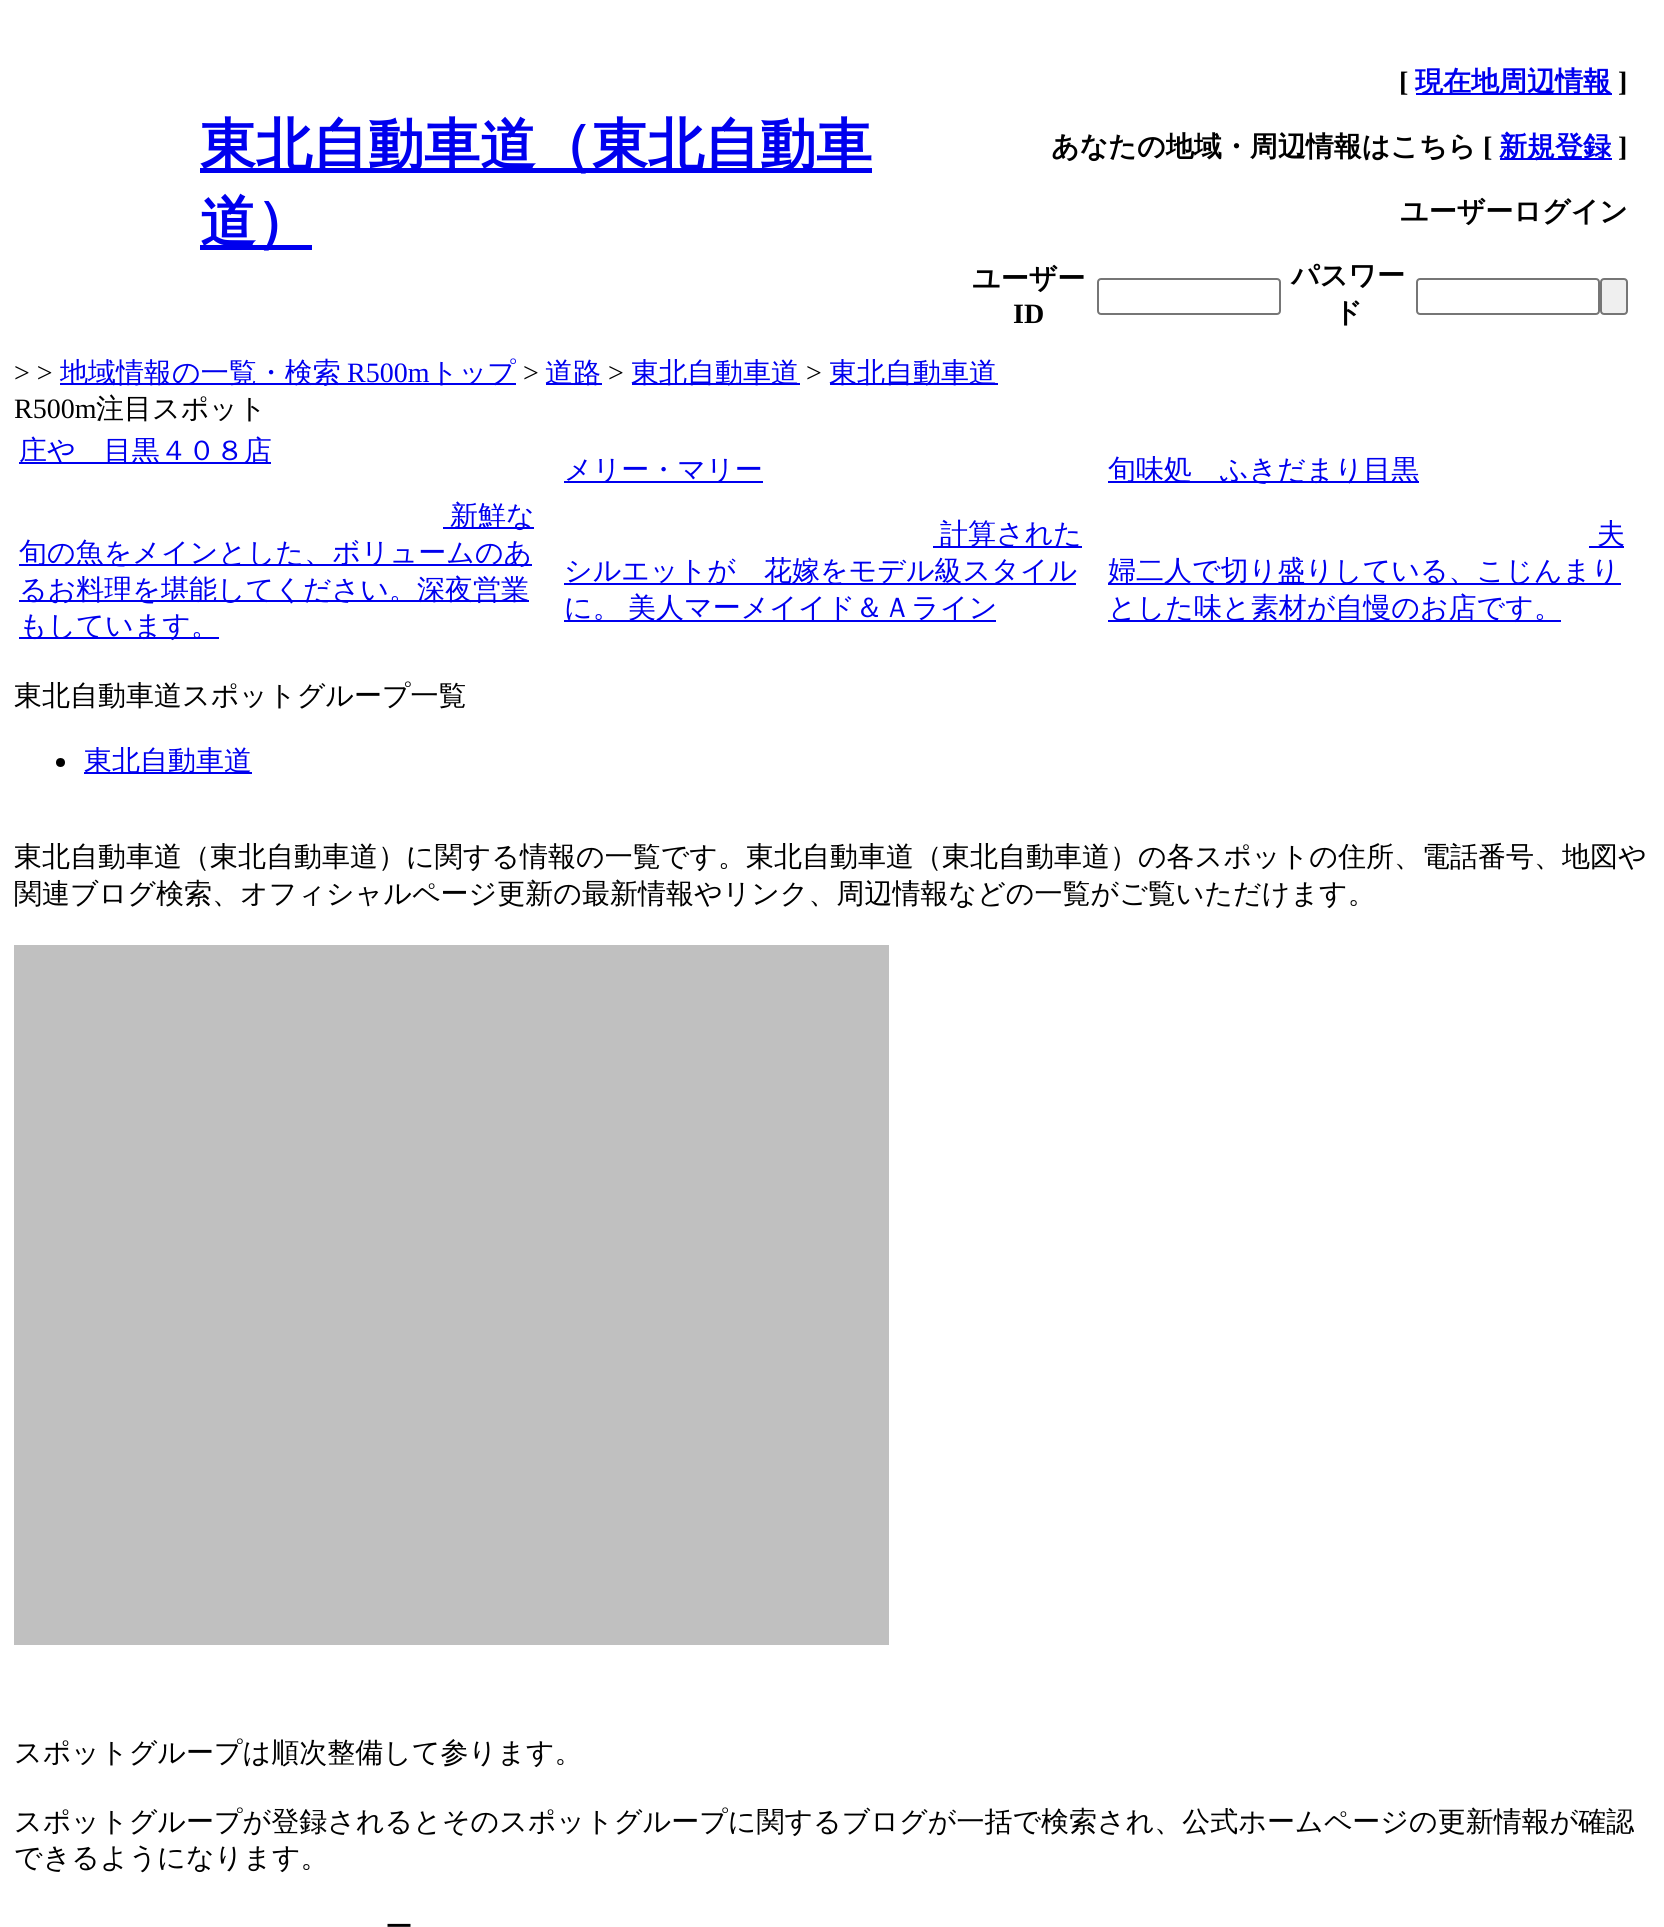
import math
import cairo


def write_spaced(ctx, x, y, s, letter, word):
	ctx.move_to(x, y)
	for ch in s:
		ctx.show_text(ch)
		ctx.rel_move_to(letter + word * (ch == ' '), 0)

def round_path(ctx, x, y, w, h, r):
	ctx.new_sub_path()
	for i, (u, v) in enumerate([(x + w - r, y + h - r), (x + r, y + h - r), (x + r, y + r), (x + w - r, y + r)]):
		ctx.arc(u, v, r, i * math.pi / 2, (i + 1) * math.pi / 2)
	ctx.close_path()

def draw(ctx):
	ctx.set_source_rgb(1, 1, 1)
	ctx.paint()
	ctx.set_source_rgb(0, 0, 0.933)
	ctx.rectangle(200, 168, 672, 5)
	ctx.fill()
	ctx.select_font_face('WenQuanYi Zen Hei', cairo.FONT_SLANT_NORMAL, cairo.FONT_WEIGHT_BOLD)
	ctx.set_font_size(56)
	ctx.move_to(200, 164)
	ctx.show_text('東北自動車道（東北自動車')
	ctx.rectangle(200, 245, 112, 5)
	ctx.fill()
	ctx.move_to(200, 241)
	ctx.show_text('道）')
	ctx.select_font_face('Liberation Serif', cairo.FONT_SLANT_NORMAL, cairo.FONT_WEIGHT_BOLD)
	ctx.set_font_size(28)
	ctx.set_source_rgb(0, 0, 0)
	ctx.move_to(1399, 91)
	ctx.show_text('[')
	ctx.set_source_rgb(0, 0, 0.933)
	ctx.rectangle(1416, 93, 196, 2)
	ctx.fill()
	ctx.select_font_face('WenQuanYi Zen Hei', cairo.FONT_SLANT_NORMAL, cairo.FONT_WEIGHT_BOLD)
	ctx.move_to(1415, 91)
	ctx.show_text('現在地周辺情報')
	ctx.select_font_face('Liberation Serif', cairo.FONT_SLANT_NORMAL, cairo.FONT_WEIGHT_BOLD)
	ctx.set_source_rgb(0, 0, 0)
	ctx.move_to(1618, 91)
	ctx.show_text(']')
	ctx.select_font_face('WenQuanYi Zen Hei', cairo.FONT_SLANT_NORMAL, cairo.FONT_WEIGHT_BOLD)
	ctx.move_to(1051, 156)
	ctx.show_text('あなたの地域・周辺情報はこちら')
	ctx.select_font_face('Liberation Serif', cairo.FONT_SLANT_NORMAL, cairo.FONT_WEIGHT_BOLD)
	ctx.move_to(1483, 156)
	ctx.show_text('[')
	ctx.set_source_rgb(0, 0, 0.933)
	ctx.rectangle(1500, 158, 112, 2)
	ctx.fill()
	ctx.select_font_face('WenQuanYi Zen Hei', cairo.FONT_SLANT_NORMAL, cairo.FONT_WEIGHT_BOLD)
	ctx.move_to(1499, 156)
	ctx.show_text('新規登録')
	ctx.select_font_face('Liberation Serif', cairo.FONT_SLANT_NORMAL, cairo.FONT_WEIGHT_BOLD)
	ctx.set_source_rgb(0, 0, 0)
	ctx.move_to(1618, 156)
	ctx.show_text(']')
	ctx.select_font_face('WenQuanYi Zen Hei', cairo.FONT_SLANT_NORMAL, cairo.FONT_WEIGHT_BOLD)
	ctx.move_to(1400, 221)
	ctx.show_text('ユーザーログイン')
	ctx.move_to(972, 288)
	ctx.show_text('ユーザー')
	ctx.select_font_face('Liberation Serif', cairo.FONT_SLANT_NORMAL, cairo.FONT_WEIGHT_BOLD)
	ctx.move_to(1013, 323)
	ctx.show_text('ID')
	round_path(ctx, 1098, 279, 182, 35, 3)
	ctx.set_source_rgb(0.463, 0.463, 0.463)
	ctx.stroke()
	ctx.select_font_face('WenQuanYi Zen Hei', cairo.FONT_SLANT_NORMAL, cairo.FONT_WEIGHT_BOLD)
	ctx.set_source_rgb(0, 0, 0)
	ctx.move_to(1291, 285)
	ctx.show_text('パスワー')
	ctx.move_to(1334, 322)
	ctx.show_text('ド')
	round_path(ctx, 1417, 279, 182, 35, 3)
	ctx.set_source_rgb(0.463, 0.463, 0.463)
	ctx.stroke()
	ctx.set_source_rgb(0.937, 0.937, 0.937)
	round_path(ctx, 1601, 279, 26, 35, 3)
	ctx.fill_preserve()
	ctx.set_source_rgb(0.463, 0.463, 0.463)
	ctx.stroke()
	ctx.select_font_face('Liberation Serif')
	ctx.set_source_rgb(0, 0, 0)
	ctx.move_to(14, 382)
	ctx.show_text('> >')
	ctx.set_source_rgb(0, 0, 0.933)
	ctx.rectangle(60, 383, 456, 2)
	ctx.fill()
	ctx.select_font_face('WenQuanYi Zen Hei Medium')
	ctx.move_to(60, 382)
	ctx.show_text('地域情報の一覧・検索')
	ctx.select_font_face('Liberation Serif')
	ctx.move_to(347, 382)
	ctx.show_text('R500m')
	ctx.select_font_face('WenQuanYi Zen Hei Medium')
	ctx.move_to(430, 382)
	ctx.show_text('トップ')
	ctx.select_font_face('Liberation Serif')
	ctx.set_source_rgb(0, 0, 0)
	ctx.move_to(523, 382)
	ctx.show_text('>')
	ctx.set_source_rgb(0, 0, 0.933)
	ctx.rectangle(546, 383, 56, 2)
	ctx.fill()
	ctx.select_font_face('WenQuanYi Zen Hei Medium')
	ctx.move_to(545, 382)
	ctx.show_text('道路')
	ctx.select_font_face('Liberation Serif')
	ctx.set_source_rgb(0, 0, 0)
	ctx.move_to(608, 382)
	ctx.show_text('>')
	ctx.set_source_rgb(0, 0, 0.933)
	ctx.rectangle(632, 383, 168, 2)
	ctx.fill()
	ctx.select_font_face('WenQuanYi Zen Hei Medium')
	ctx.move_to(631, 382)
	ctx.show_text('東北自動車道')
	ctx.select_font_face('Liberation Serif')
	ctx.set_source_rgb(0, 0, 0)
	ctx.move_to(806, 382)
	ctx.show_text('>')
	ctx.set_source_rgb(0, 0, 0.933)
	ctx.rectangle(830, 383, 168, 2)
	ctx.fill()
	ctx.select_font_face('WenQuanYi Zen Hei Medium')
	ctx.move_to(829, 382)
	ctx.show_text('東北自動車道')
	ctx.select_font_face('Liberation Serif')
	ctx.set_source_rgb(0, 0, 0)
	ctx.move_to(14, 418)
	ctx.show_text('R500m')
	ctx.select_font_face('WenQuanYi Zen Hei Medium')
	ctx.move_to(96, 418)
	ctx.show_text('注目スポット')
	ctx.set_source_rgb(0, 0, 0.933)
	ctx.rectangle(19, 462, 252, 2)
	ctx.fill()
	ctx.move_to(19, 460)
	ctx.show_text('庄や　目黒４０８店')
	ctx.rectangle(443, 527, 91, 2)
	ctx.fill()
	ctx.move_to(450, 525)
	ctx.show_text('新鮮な')
	ctx.rectangle(19, 564, 513, 2)
	ctx.fill()
	ctx.move_to(19, 562)
	ctx.show_text('旬の魚をメインとした、ボリュームのあ')
	ctx.rectangle(19, 600, 510, 2)
	ctx.fill()
	ctx.move_to(19, 599)
	ctx.show_text('るお料理を堪能してください。深夜営業')
	ctx.rectangle(19, 637, 200, 2)
	ctx.fill()
	ctx.move_to(19, 635)
	ctx.show_text('もしています。')
	ctx.rectangle(564, 481, 199, 2)
	ctx.fill()
	ctx.move_to(564, 479)
	ctx.show_text('メリー・マリー')
	ctx.rectangle(933, 546, 149, 2)
	ctx.fill()
	ctx.move_to(940, 543)
	ctx.show_text('計算された')
	ctx.rectangle(564, 583, 512, 2)
	ctx.fill()
	ctx.move_to(564, 580)
	ctx.show_text('シルエットが　花嫁をモデル級スタイル')
	ctx.rectangle(564, 620, 432, 2)
	ctx.fill()
	write_spaced(ctx, 564, 617, 'に。 美人マーメイイド＆Ａライン', 0, -1)
	ctx.rectangle(1108, 481, 311, 2)
	ctx.fill()
	ctx.move_to(1108, 479)
	ctx.show_text('旬味処　ふきだまり目黒')
	ctx.rectangle(1589, 546, 35, 2)
	ctx.fill()
	ctx.move_to(1597, 543)
	ctx.show_text('夫')
	ctx.rectangle(1108, 583, 513, 2)
	ctx.fill()
	ctx.move_to(1108, 580)
	ctx.show_text('婦二人で切り盛りしている、こじんまり')
	ctx.rectangle(1108, 620, 453, 2)
	ctx.fill()
	ctx.move_to(1108, 617)
	ctx.show_text('とした味と素材が自慢のお店です。')
	ctx.set_source_rgb(0, 0, 0)
	ctx.move_to(14, 705)
	ctx.show_text('東北自動車道スポットグループ一覧')
	ctx.new_path()
	ctx.arc(60.5, 762.5, 4.5, 0, 2 * math.pi)
	ctx.fill()
	ctx.set_source_rgb(0, 0, 0.933)
	ctx.rectangle(84, 772, 168, 2)
	ctx.fill()
	ctx.move_to(84, 770)
	ctx.show_text('東北自動車道')
	ctx.set_source_rgb(0, 0, 0)
	ctx.move_to(14, 866)
	ctx.show_text('東北自動車道（東北自動車道）に関する情報の一覧です。東北自動車道（東北自動車道）の各スポットの住所、電話番号、地図や')
	ctx.move_to(14, 903)
	ctx.show_text('関連ブログ検索、オフィシャルページ更新の最新情報やリンク、周辺情報などの一覧がご覧いただけます。')
	ctx.set_source_rgb(0.753, 0.753, 0.753)
	ctx.rectangle(14, 945, 875, 700)
	ctx.fill()
	ctx.set_source_rgb(0, 0, 0)
	for x, y, s in [
		(14, 1762, 'スポットグループは順次整備して参ります。'),
		(14, 1831, 'スポットグループが登録されるとそのスポットグループに関するブログが一括で検索され、公式ホームページの更新情報が確認'),
		(14, 1867, 'できるようになります。'),
		(385, 1936, 'ー'),
	]:
		ctx.move_to(x, y)
		ctx.show_text(s)


surface = cairo.ImageSurface(cairo.FORMAT_RGB24, 1664, 1927)
ctx = cairo.Context(surface)
options = cairo.FontOptions()
options.set_hint_metrics(cairo.HINT_METRICS_OFF)
options.set_hint_style(cairo.HINT_STYLE_NONE)
ctx.set_font_options(options)
ctx.set_miter_limit(4)
draw(ctx)
surface.write_to_png('image.png')
